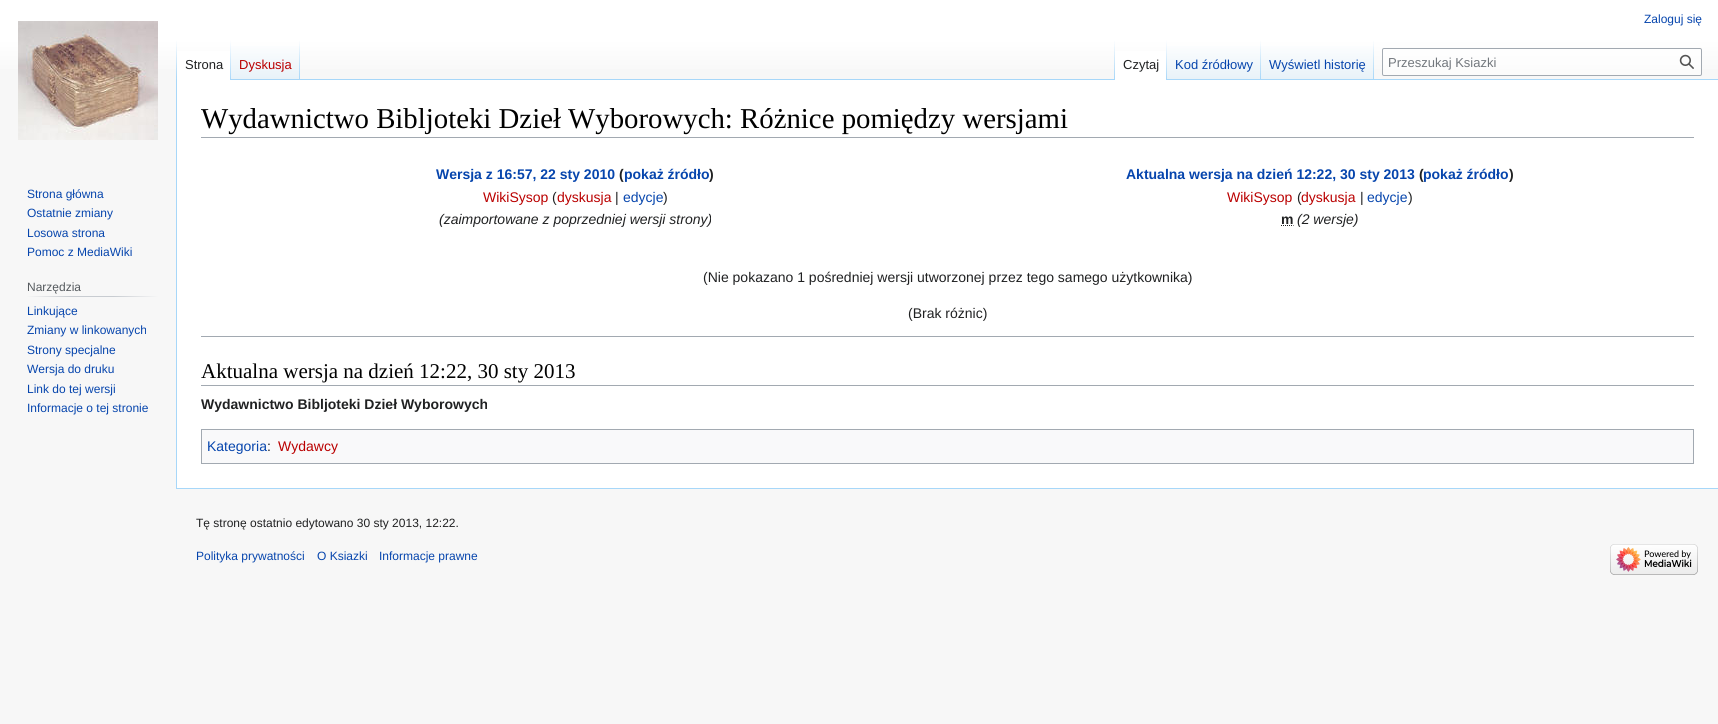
import math
import cairo


def round_path(ctx, x, y, w, h, r):
	ctx.new_sub_path()
	for i, (u, v) in enumerate([(x + w - r, y + h - r), (x + r, y + h - r), (x + r, y + r), (x + w - r, y + r)]):
		ctx.arc(u, v, r, i * math.pi / 2, (i + 1) * math.pi / 2)
	ctx.close_path()

def paste(ctx, path, x, y, w, h):
	ctx.save()
	ctx.set_source_surface(cairo.ImageSurface.create_from_png(path), x, y)
	ctx.rectangle(x, y, w, h)
	ctx.fill()
	ctx.restore()

def draw(ctx):
	ctx.set_source_rgb(0.965, 0.965, 0.965)
	ctx.paint()
	gradient = cairo.LinearGradient(859, 0, 859, 80)
	gradient.add_color_stop_rgba(0.5, 1, 1, 1, 1)
	gradient.add_color_stop_rgba(1, 0.965, 0.965, 0.965, 1)
	ctx.set_source(gradient)
	ctx.rectangle(0, 0, 1718, 69)
	ctx.fill()
	ctx.select_font_face('Liberation Sans')
	ctx.set_font_size(12)
	ctx.set_source_rgb(0.024, 0.271, 0.678)
	ctx.move_to(1644, 23)
	ctx.show_text('Zaloguj się')
	ctx.set_source_rgb(0.655, 0.843, 0.976)
	ctx.rectangle(176, 488, 1542, 1)
	ctx.fill()
	ctx.rectangle(176, 79, 1, 410)
	ctx.fill()
	gradient = cairo.LinearGradient(177, 40, 177, 80)
	gradient.add_color_stop_rgba(0, 0.655, 0.843, 0.976, 0)
	gradient.add_color_stop_rgba(1, 0.655, 0.843, 0.976, 1)
	ctx.set_source(gradient)
	ctx.rectangle(176, 40, 1, 40)
	ctx.fill()
	ctx.set_source_rgb(1, 1, 1)
	ctx.rectangle(177, 51, 53, 29)
	ctx.fill()
	gradient = cairo.LinearGradient(231, 40, 231, 80)
	gradient.add_color_stop_rgba(0, 1, 1, 1, 1)
	gradient.add_color_stop_rgba(1, 0.655, 0.843, 0.976, 1)
	ctx.set_source(gradient)
	ctx.rectangle(230, 40, 1, 40)
	ctx.fill()
	ctx.set_font_size(13)
	ctx.set_source_rgb(0.125, 0.129, 0.133)
	ctx.move_to(185, 69)
	ctx.show_text('Strona')
	gradient = cairo.LinearGradient(266, 80, 266, 40)
	gradient.add_color_stop_rgba(0, 0.467, 0.757, 0.965, 1)
	gradient.add_color_stop_rgba(0.03, 0.91, 0.949, 0.973, 1)
	gradient.add_color_stop_rgba(1, 1, 1, 1, 1)
	ctx.set_source(gradient)
	ctx.rectangle(231, 46, 69, 34)
	ctx.fill()
	gradient = cairo.LinearGradient(300, 40, 300, 80)
	gradient.add_color_stop_rgba(0, 0.655, 0.843, 0.976, 0)
	gradient.add_color_stop_rgba(1, 0.655, 0.843, 0.976, 1)
	ctx.set_source(gradient)
	ctx.rectangle(299, 40, 1, 40)
	ctx.fill()
	ctx.set_source_rgb(0.729, 0, 0)
	ctx.move_to(239, 69)
	ctx.show_text('Dyskusja')
	ctx.set_source_rgb(0.655, 0.843, 0.976)
	ctx.rectangle(300, 79, 1418, 1)
	ctx.fill()
	gradient = cairo.LinearGradient(1115, 40, 1115, 80)
	gradient.add_color_stop_rgba(0, 0.655, 0.843, 0.976, 0)
	gradient.add_color_stop_rgba(1, 0.655, 0.843, 0.976, 1)
	ctx.set_source(gradient)
	ctx.rectangle(1114, 40, 1, 40)
	ctx.fill()
	ctx.set_source_rgb(1, 1, 1)
	ctx.rectangle(1115, 51, 51, 29)
	ctx.fill()
	gradient = cairo.LinearGradient(1167, 40, 1167, 80)
	gradient.add_color_stop_rgba(0, 1, 1, 1, 1)
	gradient.add_color_stop_rgba(1, 0.655, 0.843, 0.976, 1)
	ctx.set_source(gradient)
	ctx.rectangle(1166, 40, 1, 40)
	ctx.fill()
	ctx.set_source_rgb(0.125, 0.129, 0.133)
	ctx.move_to(1123, 69)
	ctx.show_text('Czytaj')
	gradient = cairo.LinearGradient(1214, 80, 1214, 40)
	gradient.add_color_stop_rgba(0, 0.467, 0.757, 0.965, 1)
	gradient.add_color_stop_rgba(0.03, 0.91, 0.949, 0.973, 1)
	gradient.add_color_stop_rgba(1, 1, 1, 1, 1)
	ctx.set_source(gradient)
	ctx.rectangle(1167, 46, 94, 33)
	ctx.fill()
	gradient = cairo.LinearGradient(1261, 40, 1261, 80)
	gradient.add_color_stop_rgba(0, 0.655, 0.843, 0.976, 0)
	gradient.add_color_stop_rgba(1, 0.655, 0.843, 0.976, 1)
	ctx.set_source(gradient)
	ctx.rectangle(1260, 40, 1, 40)
	ctx.fill()
	ctx.set_source_rgb(0.024, 0.271, 0.678)
	ctx.move_to(1175, 69)
	ctx.show_text('Kod źródłowy')
	gradient = cairo.LinearGradient(1318, 80, 1318, 40)
	gradient.add_color_stop_rgba(0, 0.467, 0.757, 0.965, 1)
	gradient.add_color_stop_rgba(0.03, 0.91, 0.949, 0.973, 1)
	gradient.add_color_stop_rgba(1, 1, 1, 1, 1)
	ctx.set_source(gradient)
	ctx.rectangle(1261, 46, 113, 33)
	ctx.fill()
	gradient = cairo.LinearGradient(1374, 40, 1374, 80)
	gradient.add_color_stop_rgba(0, 0.655, 0.843, 0.976, 0)
	gradient.add_color_stop_rgba(1, 0.655, 0.843, 0.976, 1)
	ctx.set_source(gradient)
	ctx.rectangle(1373, 40, 1, 40)
	ctx.fill()
	ctx.set_source_rgb(0.024, 0.271, 0.678)
	ctx.move_to(1269, 69)
	ctx.show_text('Wyświetl historię')
	ctx.set_source_rgba(1, 1, 1, 0.5)
	round_path(ctx, 1382.5, 48.5, 319, 27, 1.5)
	ctx.fill_preserve()
	ctx.set_source_rgb(0.635, 0.663, 0.694)
	ctx.set_line_width(1)
	ctx.stroke()
	ctx.set_source_rgb(0.447, 0.467, 0.49)
	ctx.move_to(1388, 67)
	ctx.show_text('Przeszukaj Ksiazki')
	paste(ctx, 'media/1.png', 1679, 54, 15, 15)
	paste(ctx, 'media/2.png', 18, 21, 140, 119)
	ctx.set_font_size(12)
	ctx.set_source_rgb(0.024, 0.271, 0.678)
	for x, y, s in [
		(27, 198, 'Strona główna'),
		(27, 217, 'Ostatnie zmiany'),
		(27, 237, 'Losowa strona'),
		(27, 256, 'Pomoc z MediaWiki'),
	]:
		ctx.move_to(x, y)
		ctx.show_text(s)
	gradient = cairo.LinearGradient(27, 297, 158, 297)
	gradient.add_color_stop_rgba(0, 0.965, 0.965, 0.965, 1)
	gradient.add_color_stop_rgba(0.33, 0.784, 0.8, 0.82, 1)
	gradient.add_color_stop_rgba(0.66, 0.784, 0.8, 0.82, 1)
	gradient.add_color_stop_rgba(1, 0.965, 0.965, 0.965, 1)
	ctx.set_source(gradient)
	ctx.rectangle(27, 296, 131, 1)
	ctx.fill()
	ctx.set_source_rgb(0.329, 0.349, 0.365)
	ctx.move_to(27, 291)
	ctx.show_text('Narzędzia')
	ctx.set_source_rgb(0.024, 0.271, 0.678)
	for x, y, s in [
		(27, 315, 'Linkujące'),
		(27, 334, 'Zmiany w linkowanych'),
		(27, 354, 'Strony specjalne'),
		(27, 373, 'Wersja do druku'),
		(27, 393, 'Link do tej wersji'),
		(27, 412, 'Informacje o tej stronie'),
	]:
		ctx.move_to(x, y)
		ctx.show_text(s)
	ctx.set_source_rgb(1, 1, 1)
	ctx.rectangle(177, 80, 1541, 408)
	ctx.fill()
	ctx.set_source_rgb(0.635, 0.663, 0.694)
	ctx.rectangle(201, 137, 1493, 1)
	ctx.fill()
	ctx.select_font_face('Liberation Serif')
	ctx.set_font_size(28.8)
	ctx.set_source_rgb(0, 0, 0)
	ctx.move_to(201, 128)
	ctx.show_text('Wydawnictwo Bibljoteki Dzieł Wyborowych: Różnice pomiędzy wersjami')
	ctx.select_font_face('Liberation Sans', cairo.FONT_SLANT_NORMAL, cairo.FONT_WEIGHT_BOLD)
	ctx.set_font_size(14)
	ctx.set_source_rgb(0.024, 0.271, 0.678)
	ctx.move_to(436, 179)
	ctx.show_text('Wersja z 16:57, 22 sty 2010')
	ctx.set_source_rgb(0.125, 0.129, 0.133)
	ctx.move_to(619, 179)
	ctx.show_text('(')
	ctx.set_source_rgb(0.024, 0.271, 0.678)
	ctx.move_to(624, 179)
	ctx.show_text('pokaż źródło')
	ctx.set_source_rgb(0.125, 0.129, 0.133)
	ctx.move_to(709, 179)
	ctx.show_text(')')
	ctx.select_font_face('Liberation Sans')
	ctx.set_source_rgb(0.729, 0, 0)
	ctx.move_to(483, 202)
	ctx.show_text('WikiSysop')
	ctx.set_source_rgb(0.125, 0.129, 0.133)
	ctx.move_to(552, 202)
	ctx.show_text('(')
	ctx.set_source_rgb(0.729, 0, 0)
	ctx.move_to(557, 202)
	ctx.show_text('dyskusja')
	ctx.set_source_rgb(0.125, 0.129, 0.133)
	ctx.move_to(615, 202)
	ctx.show_text('|')
	ctx.set_source_rgb(0.024, 0.271, 0.678)
	ctx.move_to(623, 202)
	ctx.show_text('edycje')
	ctx.set_source_rgb(0.125, 0.129, 0.133)
	ctx.move_to(663, 202)
	ctx.show_text(')')
	ctx.select_font_face('Liberation Sans', cairo.FONT_SLANT_ITALIC)
	ctx.move_to(439, 224)
	ctx.show_text('(zaimportowane z poprzedniej wersji strony)')
	ctx.select_font_face('Liberation Sans', cairo.FONT_SLANT_NORMAL, cairo.FONT_WEIGHT_BOLD)
	ctx.set_source_rgb(0.024, 0.271, 0.678)
	ctx.move_to(1126, 179)
	ctx.show_text('Aktualna wersja na dzień 12:22, 30 sty 2013')
	ctx.set_source_rgb(0.125, 0.129, 0.133)
	ctx.move_to(1419, 179)
	ctx.show_text('(')
	ctx.set_source_rgb(0.024, 0.271, 0.678)
	ctx.move_to(1423, 179)
	ctx.show_text('pokaż źródło')
	ctx.set_source_rgb(0.125, 0.129, 0.133)
	ctx.move_to(1509, 179)
	ctx.show_text(')')
	ctx.select_font_face('Liberation Sans')
	ctx.set_source_rgb(0.729, 0, 0)
	ctx.move_to(1227, 202)
	ctx.show_text('WikiSysop')
	ctx.set_source_rgb(0.125, 0.129, 0.133)
	ctx.move_to(1297, 202)
	ctx.show_text('(')
	ctx.set_source_rgb(0.729, 0, 0)
	ctx.move_to(1301, 202)
	ctx.show_text('dyskusja')
	ctx.set_source_rgb(0.125, 0.129, 0.133)
	ctx.move_to(1360, 202)
	ctx.show_text('|')
	ctx.set_source_rgb(0.024, 0.271, 0.678)
	ctx.move_to(1367, 202)
	ctx.show_text('edycje')
	ctx.set_source_rgb(0.125, 0.129, 0.133)
	ctx.move_to(1408, 202)
	ctx.show_text(')')
	ctx.select_font_face('Liberation Sans', cairo.FONT_SLANT_NORMAL, cairo.FONT_WEIGHT_BOLD)
	ctx.move_to(1281, 224)
	ctx.show_text('m')
	ctx.new_path()
	ctx.move_to(1281, 225.5)
	ctx.line_to(1293.5, 225.5)
	ctx.set_dash([1, 1])
	ctx.stroke()
	ctx.select_font_face('Liberation Sans', cairo.FONT_SLANT_ITALIC)
	ctx.move_to(1297, 224)
	ctx.show_text('(2 wersje)')
	ctx.select_font_face('Liberation Sans')
	ctx.move_to(703, 282)
	ctx.show_text('(Nie pokazano 1 pośredniej wersji utworzonej przez tego samego użytkownika)')
	ctx.move_to(908, 318)
	ctx.show_text('(Brak różnic)')
	ctx.set_source_rgb(0.635, 0.663, 0.694)
	ctx.rectangle(201, 336, 1493, 1)
	ctx.fill()
	ctx.rectangle(201, 385, 1493, 1)
	ctx.fill()
	ctx.select_font_face('Liberation Serif')
	ctx.set_font_size(21)
	ctx.set_source_rgb(0, 0, 0)
	ctx.move_to(201, 378)
	ctx.show_text('Aktualna wersja na dzień 12:22, 30 sty 2013')
	ctx.select_font_face('Liberation Sans', cairo.FONT_SLANT_NORMAL, cairo.FONT_WEIGHT_BOLD)
	ctx.set_font_size(14)
	ctx.set_source_rgb(0.125, 0.129, 0.133)
	ctx.move_to(201, 409)
	ctx.show_text('Wydawnictwo Bibljoteki Dzieł Wyborowych')
	ctx.set_source_rgb(0.973, 0.976, 0.98)
	ctx.rectangle(201.5, 429.5, 1492, 34)
	ctx.fill_preserve()
	ctx.set_source_rgb(0.635, 0.663, 0.694)
	ctx.set_dash([])
	ctx.stroke()
	ctx.select_font_face('Liberation Sans')
	ctx.set_source_rgb(0.024, 0.271, 0.678)
	ctx.move_to(207, 451)
	ctx.show_text('Kategoria')
	ctx.set_source_rgb(0.125, 0.129, 0.133)
	ctx.move_to(267, 451)
	ctx.show_text(':')
	ctx.set_source_rgb(0.729, 0, 0)
	ctx.move_to(278, 451)
	ctx.show_text('Wydawcy')
	ctx.set_font_size(12)
	ctx.set_source_rgb(0.125, 0.129, 0.133)
	ctx.move_to(196, 527)
	ctx.show_text('Tę stronę ostatnio edytowano 30 sty 2013, 12:22.')
	ctx.set_source_rgb(0.024, 0.271, 0.678)
	for x, y, s in [
		(196, 560, 'Polityka prywatności'),
		(317, 560, 'O Ksiazki'),
		(379, 560, 'Informacje prawne'),
	]:
		ctx.move_to(x, y)
		ctx.show_text(s)
	paste(ctx, 'media/3.png', 1610, 544, 88, 31)


surface = cairo.ImageSurface(cairo.FORMAT_RGB24, 1718, 724)
ctx = cairo.Context(surface)
options = cairo.FontOptions()
options.set_hint_metrics(cairo.HINT_METRICS_OFF)
options.set_hint_style(cairo.HINT_STYLE_NONE)
ctx.set_font_options(options)
ctx.set_miter_limit(4)
draw(ctx)
surface.write_to_png('image.png')
